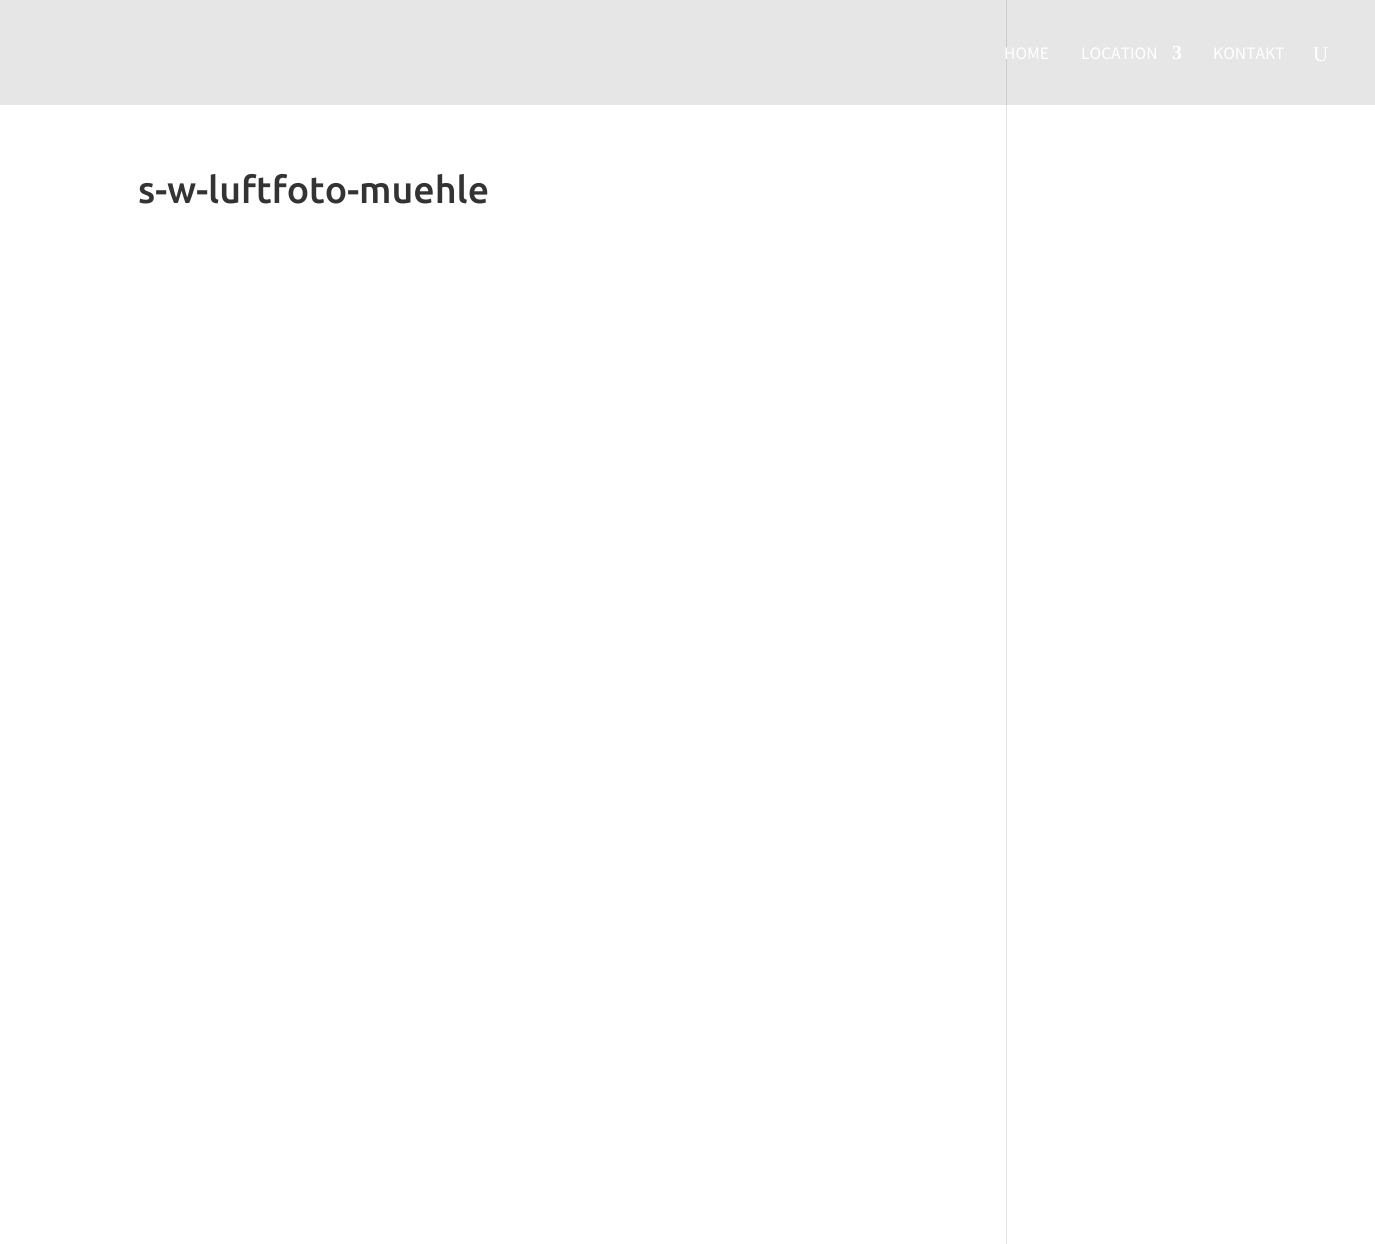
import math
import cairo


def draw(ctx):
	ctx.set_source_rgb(1, 1, 1)
	ctx.paint()
	ctx.set_source_rgb(0.902, 0.902, 0.902)
	ctx.rectangle(0, 0, 1375, 105)
	ctx.fill()
	ctx.set_source_rgb(0.796, 0.796, 0.796)
	ctx.rectangle(1006, 0, 1, 105)
	ctx.fill()
	ctx.select_font_face('Source Sans Pro')
	ctx.set_font_size(17.5)
	ctx.set_source_rgb(1, 1, 1)
	ctx.move_to(1004, 59)
	ctx.show_text('HOME')
	ctx.move_to(1081, 59)
	ctx.show_text('LOCATION')
	ctx.select_font_face('Liberation Serif', cairo.FONT_SLANT_NORMAL, cairo.FONT_WEIGHT_BOLD)
	ctx.set_font_size(20)
	ctx.move_to(1172, 59)
	ctx.show_text('3')
	ctx.select_font_face('Source Sans Pro')
	ctx.set_font_size(17.5)
	ctx.move_to(1213, 59)
	ctx.show_text('KONTAKT')
	ctx.select_font_face('Liberation Serif')
	ctx.set_font_size(21)
	ctx.move_to(1313, 61)
	ctx.show_text('U')
	ctx.select_font_face('Ubuntu Medium')
	ctx.set_font_size(37.5)
	ctx.set_source_rgb(0.2, 0.2, 0.2)
	ctx.move_to(138, 203)
	ctx.show_text('s-w-luftfoto-muehle')
	ctx.set_source_rgb(0.886, 0.886, 0.886)
	ctx.rectangle(1006, 105, 1, 1139)
	ctx.fill()


surface = cairo.ImageSurface(cairo.FORMAT_RGB24, 1375, 1244)
ctx = cairo.Context(surface)
options = cairo.FontOptions()
options.set_hint_metrics(cairo.HINT_METRICS_OFF)
options.set_hint_style(cairo.HINT_STYLE_NONE)
ctx.set_font_options(options)
ctx.set_miter_limit(4)
draw(ctx)
surface.write_to_png('image.png')
